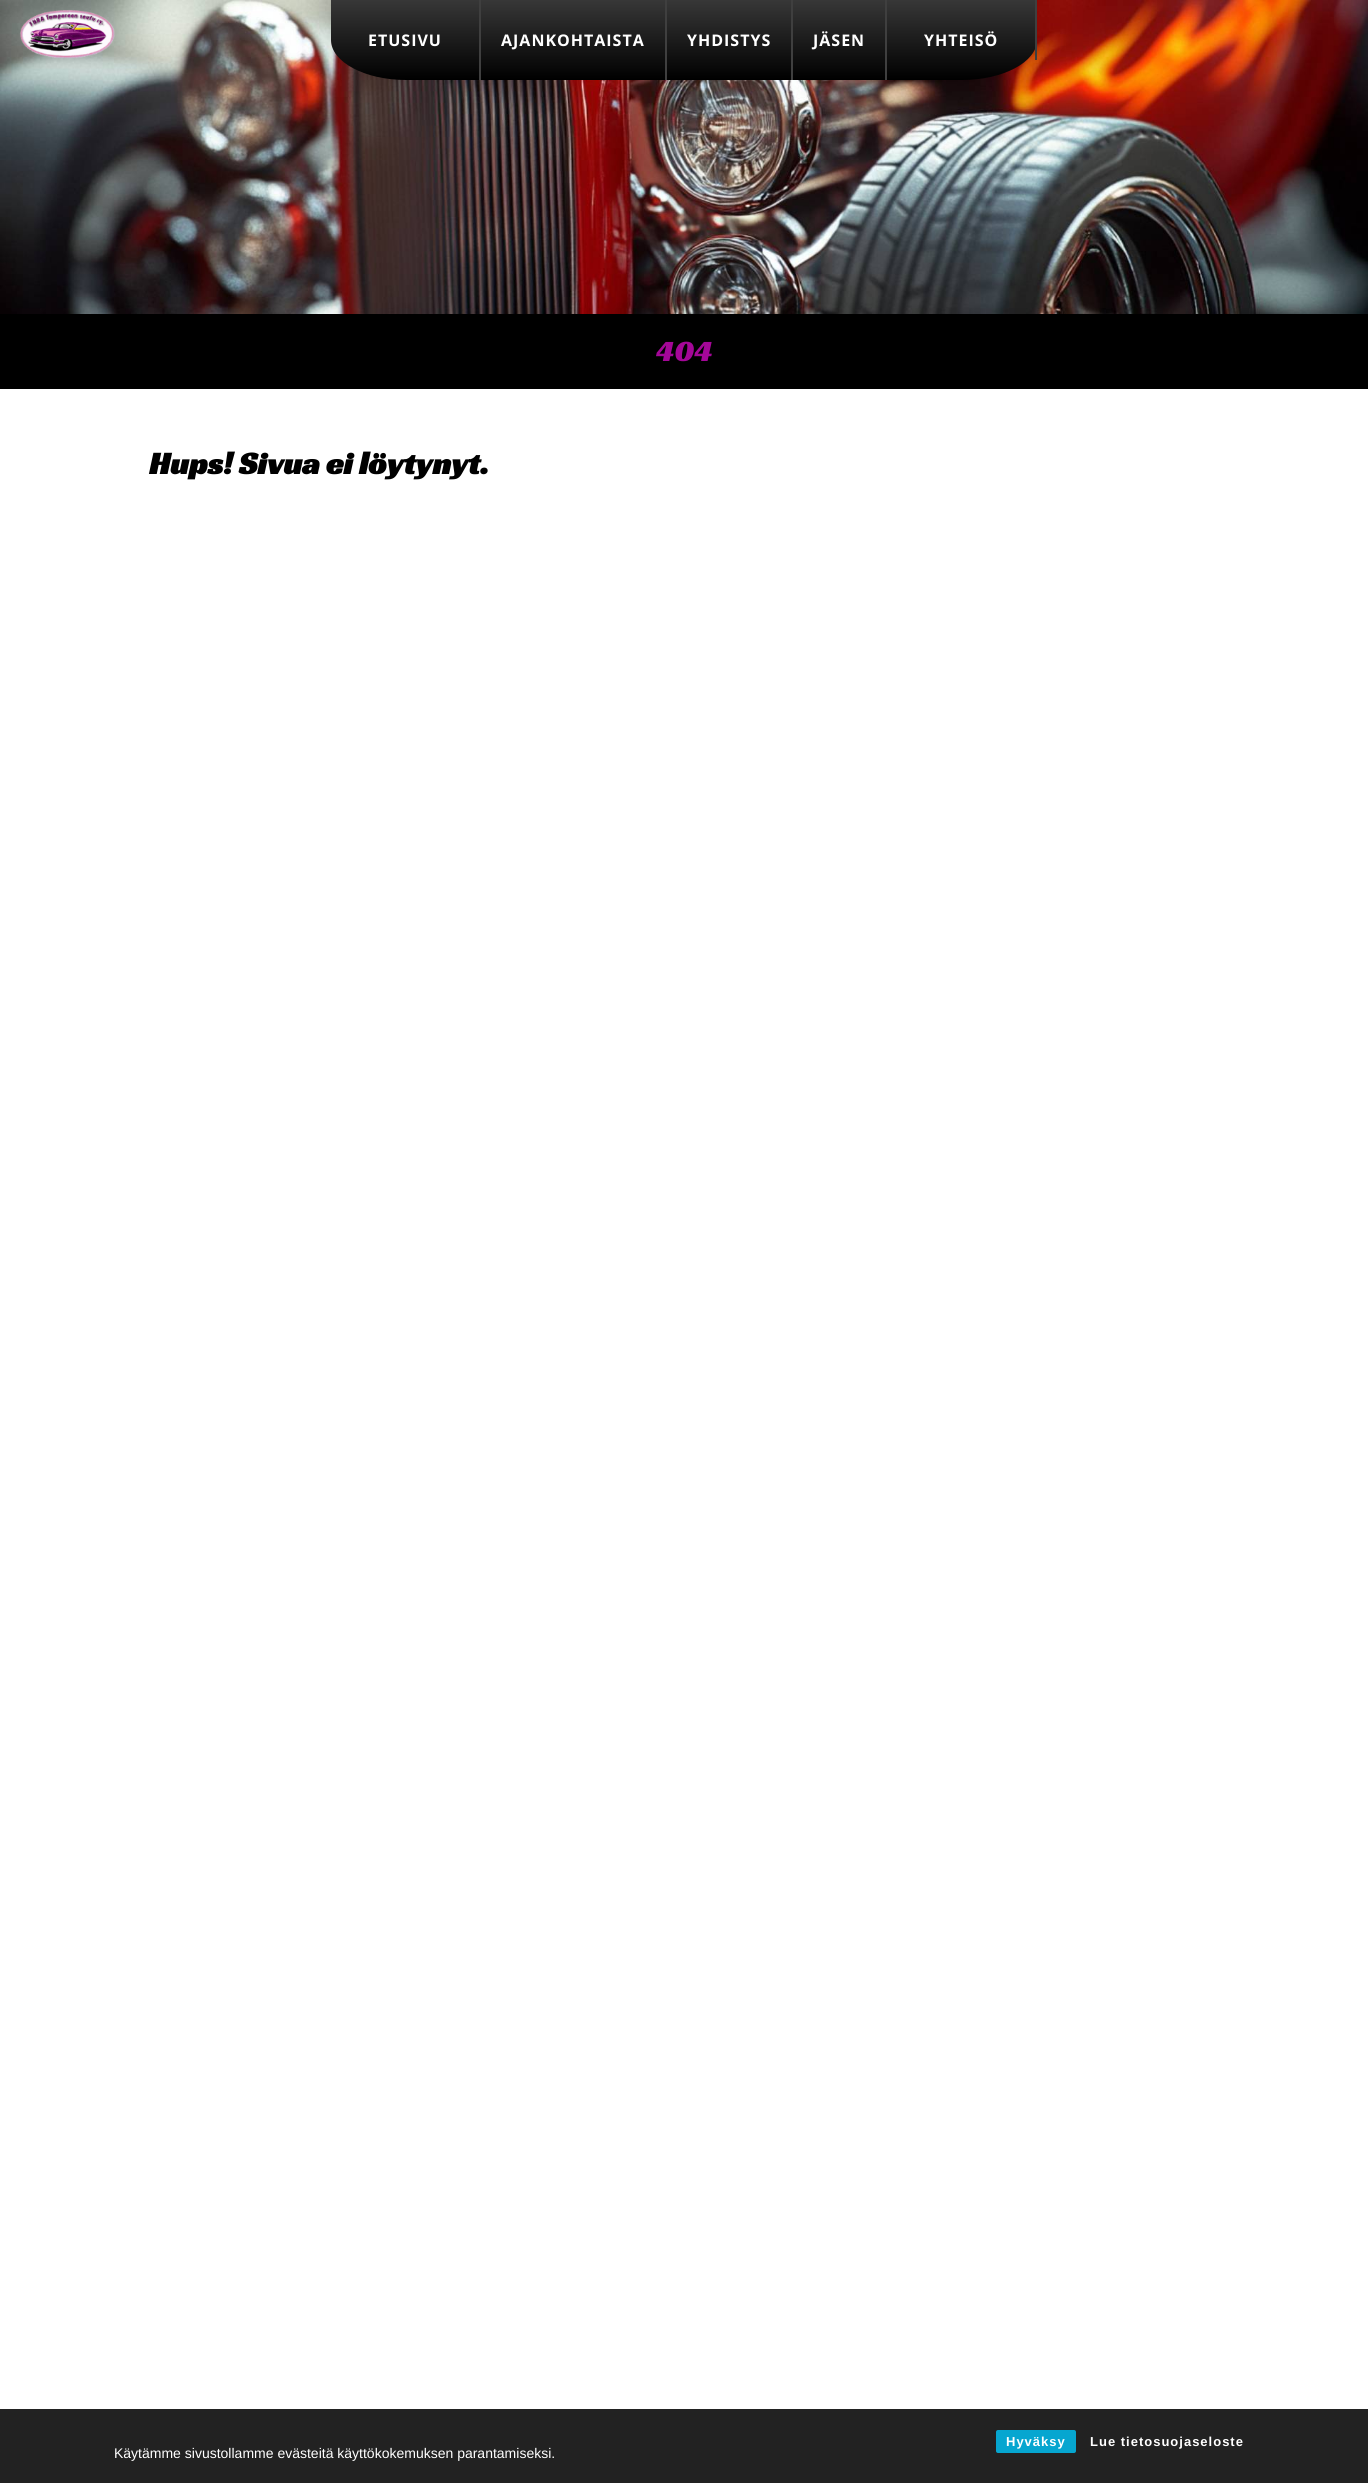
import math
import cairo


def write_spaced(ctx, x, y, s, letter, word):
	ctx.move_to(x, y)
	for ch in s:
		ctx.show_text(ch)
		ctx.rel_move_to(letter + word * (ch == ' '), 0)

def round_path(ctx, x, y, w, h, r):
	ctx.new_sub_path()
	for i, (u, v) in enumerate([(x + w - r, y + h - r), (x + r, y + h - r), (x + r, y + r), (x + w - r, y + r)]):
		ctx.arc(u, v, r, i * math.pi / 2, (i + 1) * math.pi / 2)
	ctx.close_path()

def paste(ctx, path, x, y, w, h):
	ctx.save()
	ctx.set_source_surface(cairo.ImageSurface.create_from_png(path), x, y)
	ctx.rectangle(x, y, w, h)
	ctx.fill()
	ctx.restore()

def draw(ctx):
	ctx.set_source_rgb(1, 1, 1)
	ctx.paint()
	paste(ctx, 'media/1.png', 0, 0, 1368, 314)
	paste(ctx, 'media/2.png', 20, 10, 95, 49)
	gradient = cairo.LinearGradient(405, 80, 405, 0)
	gradient.add_color_stop_rgba(0, 0, 0, 0, 1)
	gradient.add_color_stop_rgba(1, 0.216, 0.216, 0.216, 1)
	ctx.set_source(gradient)
	ctx.new_path()
	ctx.move_to(331, 0)
	ctx.line_to(481, 0)
	ctx.line_to(481, 80)
	ctx.line_to(406, 80)
	ctx.curve_to(365, 80, 331, 62, 331, 40)
	ctx.close_path()
	ctx.fill()
	ctx.set_source_rgb(0.247, 0.247, 0.247)
	ctx.rectangle(479, 0, 2, 80)
	ctx.fill()
	ctx.select_font_face('Open Sans', cairo.FONT_SLANT_NORMAL, cairo.FONT_WEIGHT_BOLD)
	ctx.set_font_size(16)
	ctx.set_source_rgb(1, 1, 1)
	write_spaced(ctx, 368, 46, 'ETUSIVU', 1, 0)
	gradient = cairo.LinearGradient(573, 80, 573, 0)
	gradient.add_color_stop_rgba(0, 0, 0, 0, 1)
	gradient.add_color_stop_rgba(1, 0.216, 0.216, 0.216, 1)
	ctx.set_source(gradient)
	ctx.rectangle(481, 0, 184, 80)
	ctx.fill()
	ctx.set_source_rgb(0.247, 0.247, 0.247)
	ctx.rectangle(665, 0, 2, 80)
	ctx.fill()
	ctx.set_source_rgb(1, 1, 1)
	write_spaced(ctx, 501, 46, 'AJANKOHTAISTA', 1, 0)
	gradient = cairo.LinearGradient(729, 80, 729, 0)
	gradient.add_color_stop_rgba(0, 0, 0, 0, 1)
	gradient.add_color_stop_rgba(1, 0.216, 0.216, 0.216, 1)
	ctx.set_source(gradient)
	ctx.rectangle(667, 0, 124, 80)
	ctx.fill()
	ctx.set_source_rgb(0.247, 0.247, 0.247)
	ctx.rectangle(791, 0, 2, 80)
	ctx.fill()
	ctx.set_source_rgb(1, 1, 1)
	write_spaced(ctx, 687, 46, 'YHDISTYS', 1, 0)
	gradient = cairo.LinearGradient(839, 80, 839, 0)
	gradient.add_color_stop_rgba(0, 0, 0, 0, 1)
	gradient.add_color_stop_rgba(1, 0.216, 0.216, 0.216, 1)
	ctx.set_source(gradient)
	ctx.rectangle(793, 0, 92, 80)
	ctx.fill()
	ctx.set_source_rgb(0.247, 0.247, 0.247)
	ctx.rectangle(885, 0, 2, 80)
	ctx.fill()
	ctx.set_source_rgb(1, 1, 1)
	write_spaced(ctx, 813, 46, 'JÄSEN', 1, 0)
	gradient = cairo.LinearGradient(961, 80, 961, 0)
	gradient.add_color_stop_rgba(0, 0, 0, 0, 1)
	gradient.add_color_stop_rgba(1, 0.216, 0.216, 0.216, 1)
	ctx.set_source(gradient)
	ctx.new_path()
	ctx.move_to(887, 0)
	ctx.line_to(1037, 0)
	ctx.line_to(1037, 40)
	ctx.curve_to(1037, 62, 1003, 80, 962, 80)
	ctx.line_to(887, 80)
	ctx.close_path()
	ctx.fill()
	ctx.set_source_rgb(0.247, 0.247, 0.247)
	ctx.rectangle(1035, 0, 2, 60)
	ctx.fill()
	ctx.set_source_rgb(1, 1, 1)
	write_spaced(ctx, 924, 46, 'YHTEISÖ', 1, 0)
	ctx.set_source_rgb(0, 0, 0)
	ctx.rectangle(0, 314, 1368, 75)
	ctx.fill()
	ctx.select_font_face('Racing Sans One')
	ctx.set_font_size(30)
	ctx.set_source_rgb(0.643, 0.031, 0.596)
	ctx.move_to(656, 361)
	ctx.show_text('404')
	ctx.select_font_face('Racing Sans One', cairo.FONT_SLANT_NORMAL, cairo.FONT_WEIGHT_BOLD)
	ctx.set_font_size(32)
	ctx.set_source_rgb(0, 0, 0)
	ctx.move_to(149, 474)
	ctx.show_text('Hups! Sivua ei löytynyt.')
	ctx.set_source_rgb(0.133, 0.133, 0.133)
	ctx.rectangle(0, 2409, 1368, 74)
	ctx.fill()
	ctx.set_source_rgb(0.027, 0.651, 0.816)
	round_path(ctx, 996, 2430, 80, 23, 2)
	ctx.fill()
	ctx.select_font_face('Liberation Sans', cairo.FONT_SLANT_NORMAL, cairo.FONT_WEIGHT_BOLD)
	ctx.set_font_size(13)
	ctx.set_source_rgb(1, 1, 1)
	write_spaced(ctx, 1006, 2446, 'Hyväksy', 1, 0)
	write_spaced(ctx, 1090, 2446, 'Lue tietosuojaseloste', 1, 0)
	ctx.select_font_face('Liberation Sans')
	ctx.set_font_size(14)
	ctx.move_to(114, 2458)
	ctx.show_text('Käytämme sivustollamme evästeitä käyttökokemuksen parantamiseksi.')


surface = cairo.ImageSurface(cairo.FORMAT_RGB24, 1368, 2483)
ctx = cairo.Context(surface)
options = cairo.FontOptions()
options.set_hint_metrics(cairo.HINT_METRICS_OFF)
options.set_hint_style(cairo.HINT_STYLE_NONE)
ctx.set_font_options(options)
ctx.set_miter_limit(4)
draw(ctx)
surface.write_to_png('image.png')
